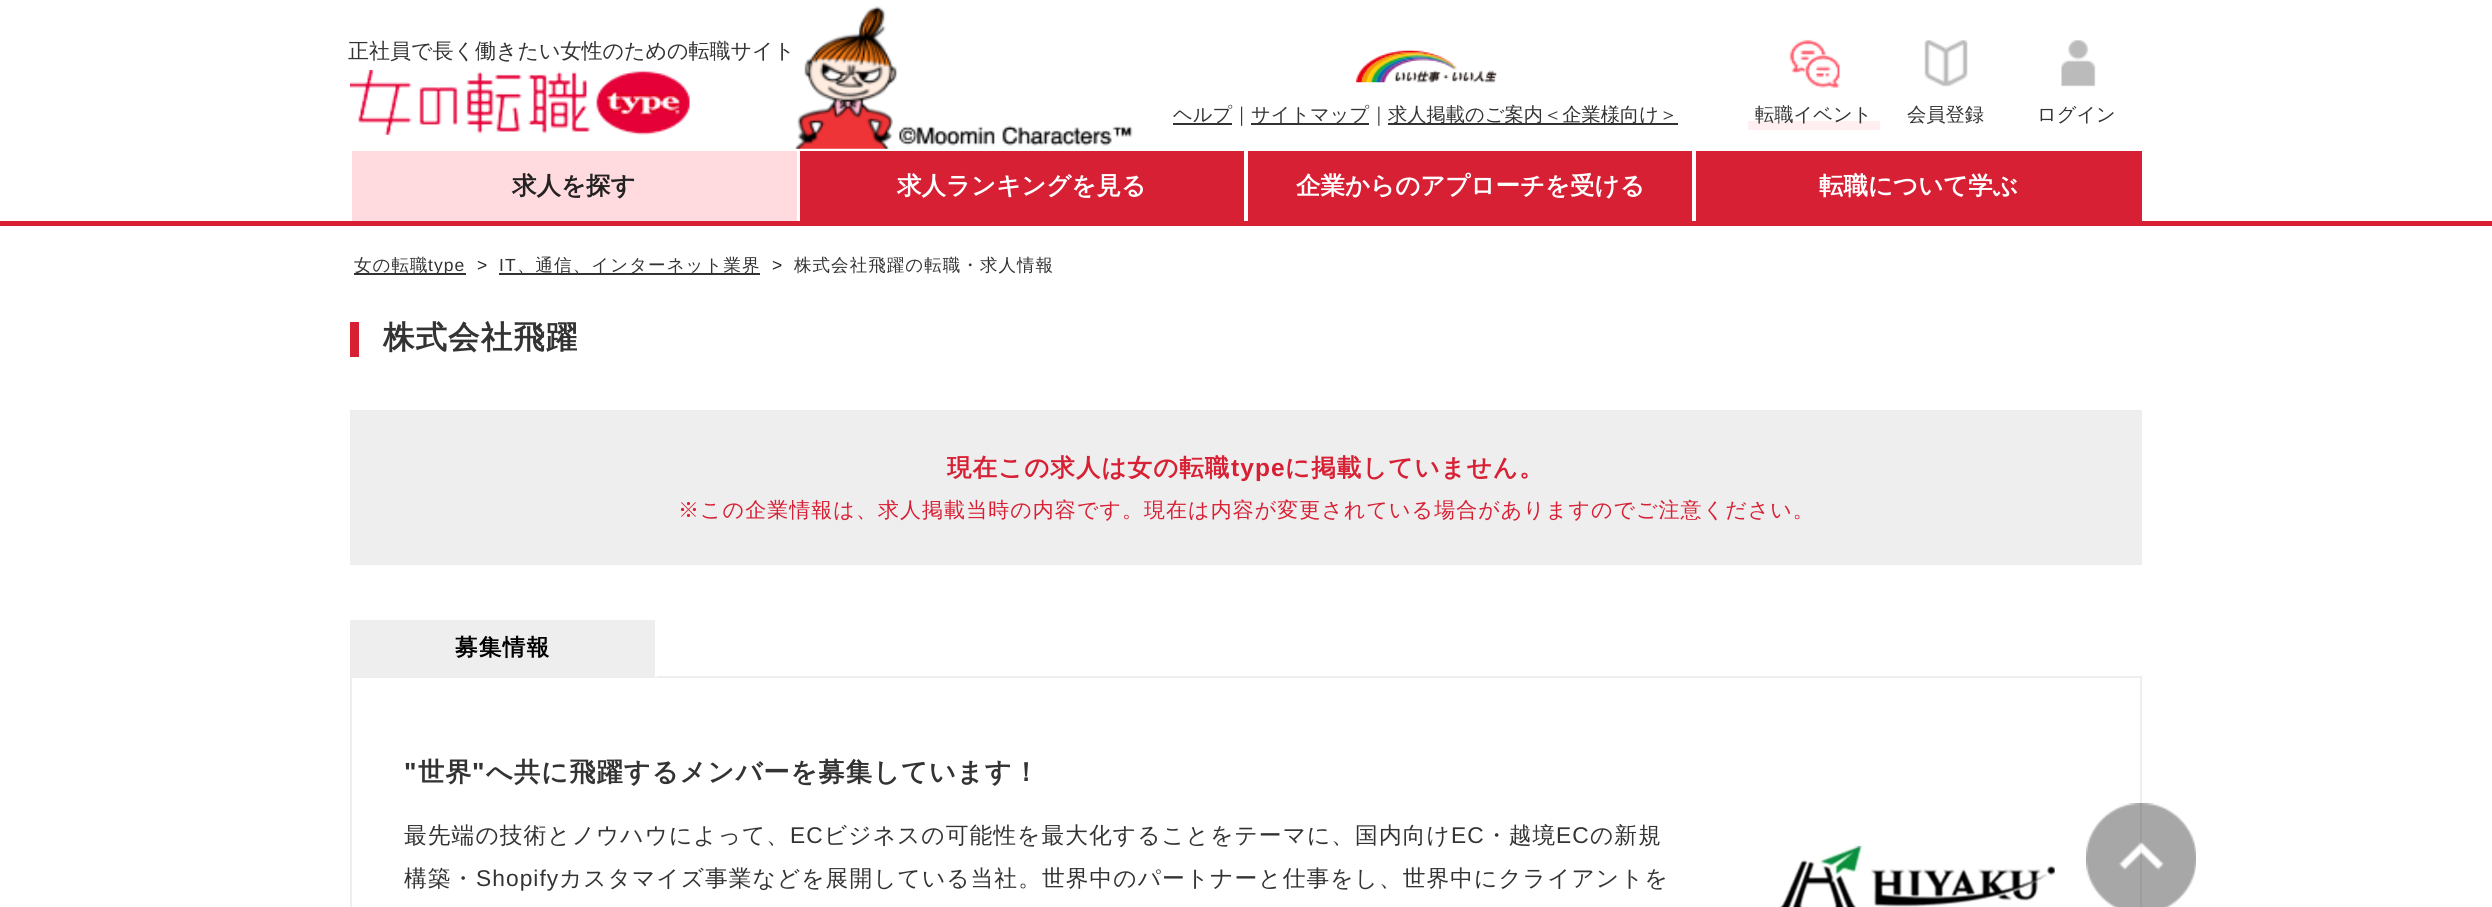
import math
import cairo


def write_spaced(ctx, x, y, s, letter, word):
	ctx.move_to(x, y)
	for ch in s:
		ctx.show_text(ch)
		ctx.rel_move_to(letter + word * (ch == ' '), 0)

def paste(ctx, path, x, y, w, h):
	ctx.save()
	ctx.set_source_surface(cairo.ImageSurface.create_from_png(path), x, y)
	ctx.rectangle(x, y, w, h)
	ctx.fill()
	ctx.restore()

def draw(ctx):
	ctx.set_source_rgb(1, 1, 1)
	ctx.paint()
	ctx.select_font_face('WenQuanYi Zen Hei Medium')
	ctx.set_font_size(21)
	ctx.set_source_rgb(0.2, 0.2, 0.2)
	ctx.move_to(348, 58)
	ctx.show_text('正社員で長く働きたい女性のための転職サイト')
	paste(ctx, 'media/1.png', 794, 6, 339, 143)
	paste(ctx, 'media/2.png', 350, 70, 340, 65)
	paste(ctx, 'media/3.png', 1356, 50, 141, 33)
	ctx.rectangle(1173, 123, 59, 2)
	ctx.fill()
	ctx.set_font_size(19.25)
	ctx.move_to(1173, 121)
	ctx.show_text('ヘルプ｜')
	ctx.rectangle(1251, 123, 118, 2)
	ctx.fill()
	ctx.move_to(1251, 121)
	ctx.show_text('サイトマップ｜')
	ctx.rectangle(1388, 123, 290, 2)
	ctx.fill()
	ctx.move_to(1388, 121)
	ctx.show_text('求人掲載のご案内＜企業様向け＞')
	paste(ctx, 'media/4.png', 1789, 39, 51, 49)
	ctx.set_source_rgb(1, 0.937, 0.945)
	ctx.rectangle(1748, 121, 132, 9)
	ctx.fill()
	ctx.set_source_rgb(0.2, 0.2, 0.2)
	ctx.move_to(1755, 121)
	ctx.show_text('転職イベント')
	paste(ctx, 'media/5.png', 1924, 40, 44, 47)
	ctx.move_to(1907, 121)
	ctx.show_text('会員登録')
	paste(ctx, 'media/6.png', 2061, 40, 35, 47)
	ctx.move_to(2037, 121)
	ctx.show_text('ログイン')
	ctx.set_source_rgb(0.847, 0.125, 0.208)
	ctx.rectangle(0, 221, 2492, 5)
	ctx.fill()
	ctx.set_source_rgb(1, 0.855, 0.875)
	ctx.rectangle(352, 151, 445, 70)
	ctx.fill()
	ctx.select_font_face('WenQuanYi Zen Hei', cairo.FONT_SLANT_NORMAL, cairo.FONT_WEIGHT_BOLD)
	ctx.set_font_size(24.5)
	ctx.set_source_rgb(0.133, 0.133, 0.133)
	ctx.move_to(512, 194)
	ctx.show_text('求人を探す')
	ctx.set_source_rgb(0.847, 0.125, 0.208)
	ctx.rectangle(800, 151, 444, 70)
	ctx.fill()
	ctx.set_source_rgb(1, 1, 1)
	ctx.move_to(897, 194)
	ctx.show_text('求人ランキングを見る')
	ctx.set_source_rgb(0.847, 0.125, 0.208)
	ctx.rectangle(1248, 151, 444, 70)
	ctx.fill()
	ctx.set_source_rgb(1, 1, 1)
	ctx.move_to(1296, 194)
	ctx.show_text('企業からのアプローチを受ける')
	ctx.set_source_rgb(0.847, 0.125, 0.208)
	ctx.rectangle(1696, 151, 446, 70)
	ctx.fill()
	ctx.set_source_rgb(1, 1, 1)
	ctx.move_to(1819, 194)
	ctx.show_text('転職について学ぶ')
	ctx.set_source_rgb(0.2, 0.2, 0.2)
	ctx.rectangle(354, 273, 112, 2)
	ctx.fill()
	ctx.select_font_face('WenQuanYi Zen Hei Medium')
	ctx.set_font_size(17.5)
	write_spaced(ctx, 354, 271, '女の転職', 1.05, 0)
	ctx.select_font_face('Liberation Sans')
	write_spaced(ctx, 428, 271, 'type', 1.05, 0)
	ctx.set_source_rgb(0.133, 0.133, 0.133)
	write_spaced(ctx, 477, 271, '>', 1.05, 0)
	ctx.set_source_rgb(0.2, 0.2, 0.2)
	write_spaced(ctx, 499, 271, 'IT', 1.05, 0)
	ctx.rectangle(499, 273, 261, 2)
	ctx.fill()
	ctx.select_font_face('WenQuanYi Zen Hei Medium')
	write_spaced(ctx, 517, 271, '、通信、インターネット業界', 1.05, 0)
	ctx.select_font_face('Liberation Sans')
	ctx.set_source_rgb(0.133, 0.133, 0.133)
	write_spaced(ctx, 772, 271, '>', 1.05, 0)
	ctx.select_font_face('WenQuanYi Zen Hei Medium')
	ctx.set_source_rgb(0.2, 0.2, 0.2)
	write_spaced(ctx, 794, 271, '株式会社飛躍の転職・求人情報', 1.05, 0)
	ctx.set_source_rgb(0.847, 0.125, 0.208)
	ctx.rectangle(350, 322, 9, 35)
	ctx.fill()
	ctx.select_font_face('WenQuanYi Zen Hei', cairo.FONT_SLANT_NORMAL, cairo.FONT_WEIGHT_BOLD)
	ctx.set_font_size(31.5)
	ctx.set_source_rgb(0.2, 0.2, 0.2)
	write_spaced(ctx, 383, 348, '株式会社飛躍', 1.05, 0)
	ctx.set_source_rgb(0.933, 0.933, 0.933)
	ctx.rectangle(350, 410, 1792, 155)
	ctx.fill()
	ctx.set_font_size(24.5)
	ctx.set_source_rgb(0.847, 0.125, 0.208)
	write_spaced(ctx, 947, 476, '現在この求人は女の転職', 1.05, 0)
	ctx.select_font_face('Liberation Sans', cairo.FONT_SLANT_NORMAL, cairo.FONT_WEIGHT_BOLD)
	write_spaced(ctx, 1231, 476, 'type', 1.05, 0)
	ctx.select_font_face('WenQuanYi Zen Hei', cairo.FONT_SLANT_NORMAL, cairo.FONT_WEIGHT_BOLD)
	write_spaced(ctx, 1285, 476, 'に掲載していません。', 1.05, 0)
	ctx.select_font_face('WenQuanYi Zen Hei Medium')
	ctx.set_font_size(21)
	write_spaced(ctx, 678, 517, '※この企業情報は、求人掲載当時の内容です。現在は内容が変更されている場合がありますのでご注意ください。', 1.05, 0)
	ctx.set_source_rgb(0.933, 0.933, 0.933)
	ctx.rectangle(350, 620, 305, 56)
	ctx.fill()
	ctx.rectangle(351, 677, 1790, 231)
	ctx.stroke()
	ctx.set_source_rgb(1, 1, 1)
	ctx.rectangle(655, 676, 2, 1)
	ctx.fill()
	ctx.select_font_face('WenQuanYi Zen Hei', cairo.FONT_SLANT_NORMAL, cairo.FONT_WEIGHT_BOLD)
	ctx.set_font_size(22.75)
	ctx.set_source_rgb(0, 0, 0)
	write_spaced(ctx, 455, 655, '募集情報', 1.05, 0)
	ctx.select_font_face('Liberation Sans', cairo.FONT_SLANT_NORMAL, cairo.FONT_WEIGHT_BOLD)
	ctx.set_font_size(26.25)
	ctx.set_source_rgb(0.2, 0.2, 0.2)
	write_spaced(ctx, 404, 781, '"', 1.05, 0)
	ctx.select_font_face('WenQuanYi Zen Hei', cairo.FONT_SLANT_NORMAL, cairo.FONT_WEIGHT_BOLD)
	write_spaced(ctx, 418, 781, '世界', 1.05, 0)
	ctx.select_font_face('Liberation Sans', cairo.FONT_SLANT_NORMAL, cairo.FONT_WEIGHT_BOLD)
	write_spaced(ctx, 472, 781, '"', 1.05, 0)
	ctx.select_font_face('WenQuanYi Zen Hei', cairo.FONT_SLANT_NORMAL, cairo.FONT_WEIGHT_BOLD)
	write_spaced(ctx, 486, 781, 'へ共に飛躍するメンバーを募集しています！', 1.05, 0)
	ctx.select_font_face('WenQuanYi Zen Hei Medium')
	ctx.set_font_size(22.75)
	write_spaced(ctx, 404, 843, '最先端の技術とノウハウによって、', 1.05, 0)
	ctx.select_font_face('Liberation Sans')
	write_spaced(ctx, 790, 843, 'EC', 1.05, 0)
	ctx.select_font_face('WenQuanYi Zen Hei Medium')
	write_spaced(ctx, 824, 843, 'ビジネスの可能性を最大化することをテーマに、国内向け', 1.05, 0)
	ctx.select_font_face('Liberation Sans')
	write_spaced(ctx, 1451, 843, 'EC', 1.05, 0)
	ctx.select_font_face('WenQuanYi Zen Hei Medium')
	write_spaced(ctx, 1485, 843, '・越境', 1.05, 0)
	ctx.select_font_face('Liberation Sans')
	write_spaced(ctx, 1556, 843, 'EC', 1.05, 0)
	ctx.select_font_face('WenQuanYi Zen Hei Medium')
	write_spaced(ctx, 1590, 843, 'の新規', 1.05, 0)
	write_spaced(ctx, 404, 886, '構築・', 1.05, 0)
	ctx.select_font_face('Liberation Sans')
	write_spaced(ctx, 476, 886, 'Shopify', 1.05, 0)
	ctx.select_font_face('WenQuanYi Zen Hei Medium')
	write_spaced(ctx, 559, 886, 'カスタマイズ事業などを展開している当社。世界中のパートナーと仕事をし、世界中にクライアントを', 1.05, 0)
	paste(ctx, 'media/7.png', 1780, 844, 276, 63)
	paste(ctx, 'media/8.png', 2086, 803, 110, 104)


surface = cairo.ImageSurface(cairo.FORMAT_RGB24, 2492, 907)
ctx = cairo.Context(surface)
options = cairo.FontOptions()
options.set_hint_metrics(cairo.HINT_METRICS_OFF)
options.set_hint_style(cairo.HINT_STYLE_NONE)
ctx.set_font_options(options)
ctx.set_miter_limit(4)
draw(ctx)
surface.write_to_png('image.png')
